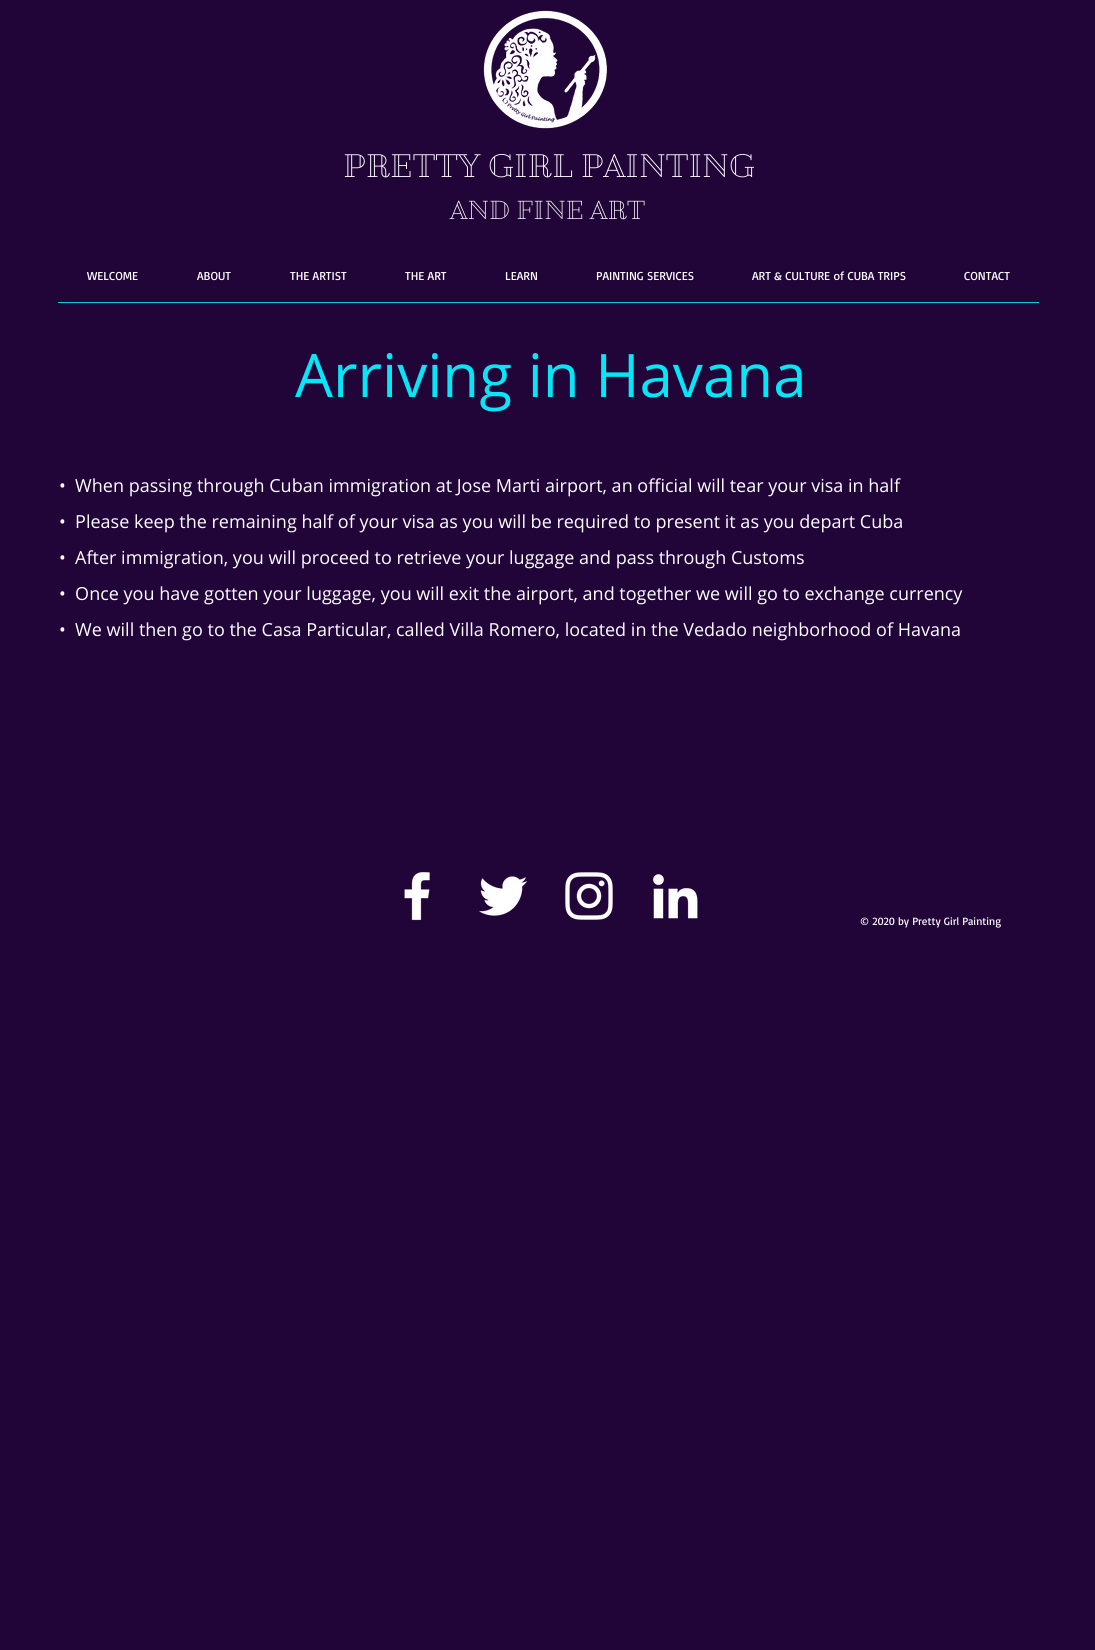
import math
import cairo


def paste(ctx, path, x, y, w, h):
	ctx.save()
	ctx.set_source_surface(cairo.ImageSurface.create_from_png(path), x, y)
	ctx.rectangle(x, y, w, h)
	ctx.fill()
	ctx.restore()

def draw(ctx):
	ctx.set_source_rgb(0.129, 0.016, 0.22)
	ctx.paint()
	paste(ctx, 'media/1.png', 483, 10, 124, 119)
	ctx.select_font_face('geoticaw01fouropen', cairo.FONT_SLANT_NORMAL, cairo.FONT_WEIGHT_BOLD)
	ctx.set_font_size(30)
	ctx.set_source_rgb(1, 1, 1)
	ctx.move_to(343, 177)
	ctx.show_text('PRETTY GIRL PAINTING')
	ctx.set_font_size(24)
	ctx.move_to(450, 219)
	ctx.show_text('AND FINE ART')
	ctx.select_font_face('Basic')
	ctx.set_font_size(12)
	for x, y, s in [
		(87, 280, 'WELCOME'),
		(197, 280, 'ABOUT'),
		(290, 280, 'THE ARTIST'),
		(405, 280, 'THE ART'),
		(505, 280, 'LEARN'),
		(596, 280, 'PAINTING SERVICES'),
		(752, 280, 'ART & CULTURE of CUBA TRIPS'),
		(964, 280, 'CONTACT'),
	]:
		ctx.move_to(x, y)
		ctx.show_text(s)
	ctx.set_source_rgb(0, 0.808, 0.859)
	ctx.rectangle(58, 302, 981, 1)
	ctx.fill()
	ctx.select_font_face('Open Sans')
	ctx.set_font_size(60)
	ctx.set_source_rgb(0.027, 0.902, 0.961)
	ctx.move_to(295, 397)
	ctx.show_text('Arriving in Havana')
	ctx.set_font_size(18)
	ctx.set_source_rgb(1, 1, 1)
	for x, y, s in [
		(59, 492, '•  When passing through Cuban immigration at Jose Marti airport, an official will tear your visa in half'),
		(59, 528, '•  Please keep the remaining half of your visa as you will be required to present it as you depart Cuba'),
		(59, 564, '•  After immigration, you will proceed to retrieve your luggage and pass through Customs'),
		(59, 600, '•  Once you have gotten your luggage, you will exit the airport, and together we will go to exchange currency'),
		(59, 636, '•  We will then go to the Casa Particular, called Villa Romero, located in the Vedado neighborhood of Havana'),
	]:
		ctx.move_to(x, y)
		ctx.show_text(s)
	paste(ctx, 'media/2.png', 404, 872, 26, 49)
	paste(ctx, 'media/3.png', 479, 876, 48, 40)
	paste(ctx, 'media/4.png', 565, 872, 48, 48)
	paste(ctx, 'media/5.png', 653, 874, 45, 45)
	ctx.select_font_face('Basic')
	ctx.set_font_size(11)
	ctx.move_to(860, 925)
	ctx.show_text('© 2020 by Pretty Girl Painting')


surface = cairo.ImageSurface(cairo.FORMAT_RGB24, 1095, 1650)
ctx = cairo.Context(surface)
options = cairo.FontOptions()
options.set_hint_metrics(cairo.HINT_METRICS_OFF)
options.set_hint_style(cairo.HINT_STYLE_NONE)
ctx.set_font_options(options)
ctx.set_miter_limit(4)
draw(ctx)
surface.write_to_png('image.png')
